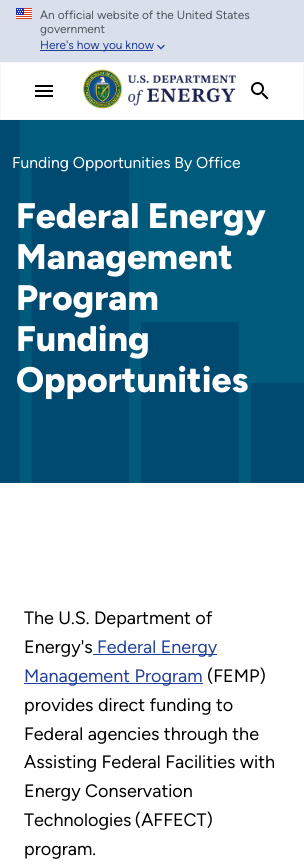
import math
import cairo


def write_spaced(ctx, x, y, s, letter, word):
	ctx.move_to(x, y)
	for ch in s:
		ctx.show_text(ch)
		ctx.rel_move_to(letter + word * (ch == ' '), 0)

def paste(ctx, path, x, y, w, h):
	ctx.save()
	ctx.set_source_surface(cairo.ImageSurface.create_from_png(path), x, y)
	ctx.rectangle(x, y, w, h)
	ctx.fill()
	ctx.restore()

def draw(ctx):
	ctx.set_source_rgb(1, 1, 1)
	ctx.paint()
	ctx.set_source_rgb(0.851, 0.875, 0.918)
	ctx.rectangle(0, 0, 304, 62)
	ctx.fill()
	paste(ctx, 'media/1.png', 16, 8, 16, 11)
	ctx.select_font_face('Figtree Light')
	ctx.set_font_size(11.9)
	ctx.set_source_rgb(0.322, 0.337, 0.361)
	ctx.move_to(40, 19)
	ctx.show_text('An official website of the United States')
	ctx.move_to(40, 33)
	ctx.show_text('government')
	ctx.set_source_rgb(0.129, 0.251, 0.604)
	ctx.rectangle(40, 50, 113, 1)
	ctx.fill()
	ctx.move_to(40, 49)
	ctx.show_text('Here\'s how you know')
	paste(ctx, 'media/2.png', 157, 44, 8, 6)
	ctx.rectangle(0.5, 62.5, 303, 57)
	ctx.set_source_rgb(0.957, 0.965, 0.976)
	ctx.set_line_width(1)
	ctx.stroke()
	paste(ctx, 'media/3.png', 35, 85, 18, 12)
	paste(ctx, 'media/4.png', 83, 69, 153, 40)
	paste(ctx, 'media/5.png', 251, 82, 18, 18)
	paste(ctx, 'media/6.png', 0, 120, 304, 363)
	ctx.set_font_size(15.7)
	ctx.set_source_rgb(1, 1, 1)
	ctx.move_to(12, 168)
	ctx.show_text('Funding Opportunities By Office')
	ctx.select_font_face('Figtree ExtraBold')
	ctx.set_font_size(35.5)
	for x, y, s in [
		(16, 228, 'Federal Energy'),
		(16, 269, 'Management'),
		(16, 310, 'Program'),
		(16, 351, 'Funding'),
		(16, 392, 'Opportunities'),
	]:
		ctx.move_to(x, y)
		ctx.show_text(s)
	ctx.select_font_face('Figtree Light')
	ctx.set_font_size(18)
	ctx.set_source_rgb(0, 0, 0)
	ctx.move_to(24, 624)
	ctx.show_text('The U.S. Department of')
	ctx.move_to(24, 653)
	ctx.show_text('Energy\'s')
	ctx.set_source_rgb(0.129, 0.251, 0.604)
	ctx.rectangle(93, 654, 124, 1)
	ctx.fill()
	ctx.move_to(97, 653)
	ctx.show_text('Federal Energy')
	ctx.rectangle(24, 683, 179, 1)
	ctx.fill()
	ctx.move_to(24, 682)
	ctx.show_text('Management Program')
	ctx.set_source_rgb(0, 0, 0)
	for x, y, s in [
		(207, 682, '(FEMP)'),
		(24, 711, 'provides direct funding to'),
		(24, 740, 'Federal agencies through the'),
		(24, 768, 'Assisting Federal Facilities with'),
		(24, 797, 'Energy Conservation'),
	]:
		ctx.move_to(x, y)
		ctx.show_text(s)
	write_spaced(ctx, 24, 826, 'Technologies (AFFECT)', 0, -1)
	ctx.move_to(24, 855)
	ctx.show_text('program.')


surface = cairo.ImageSurface(cairo.FORMAT_RGB24, 304, 866)
ctx = cairo.Context(surface)
options = cairo.FontOptions()
options.set_hint_metrics(cairo.HINT_METRICS_OFF)
options.set_hint_style(cairo.HINT_STYLE_NONE)
ctx.set_font_options(options)
ctx.set_miter_limit(4)
draw(ctx)
surface.write_to_png('image.png')
